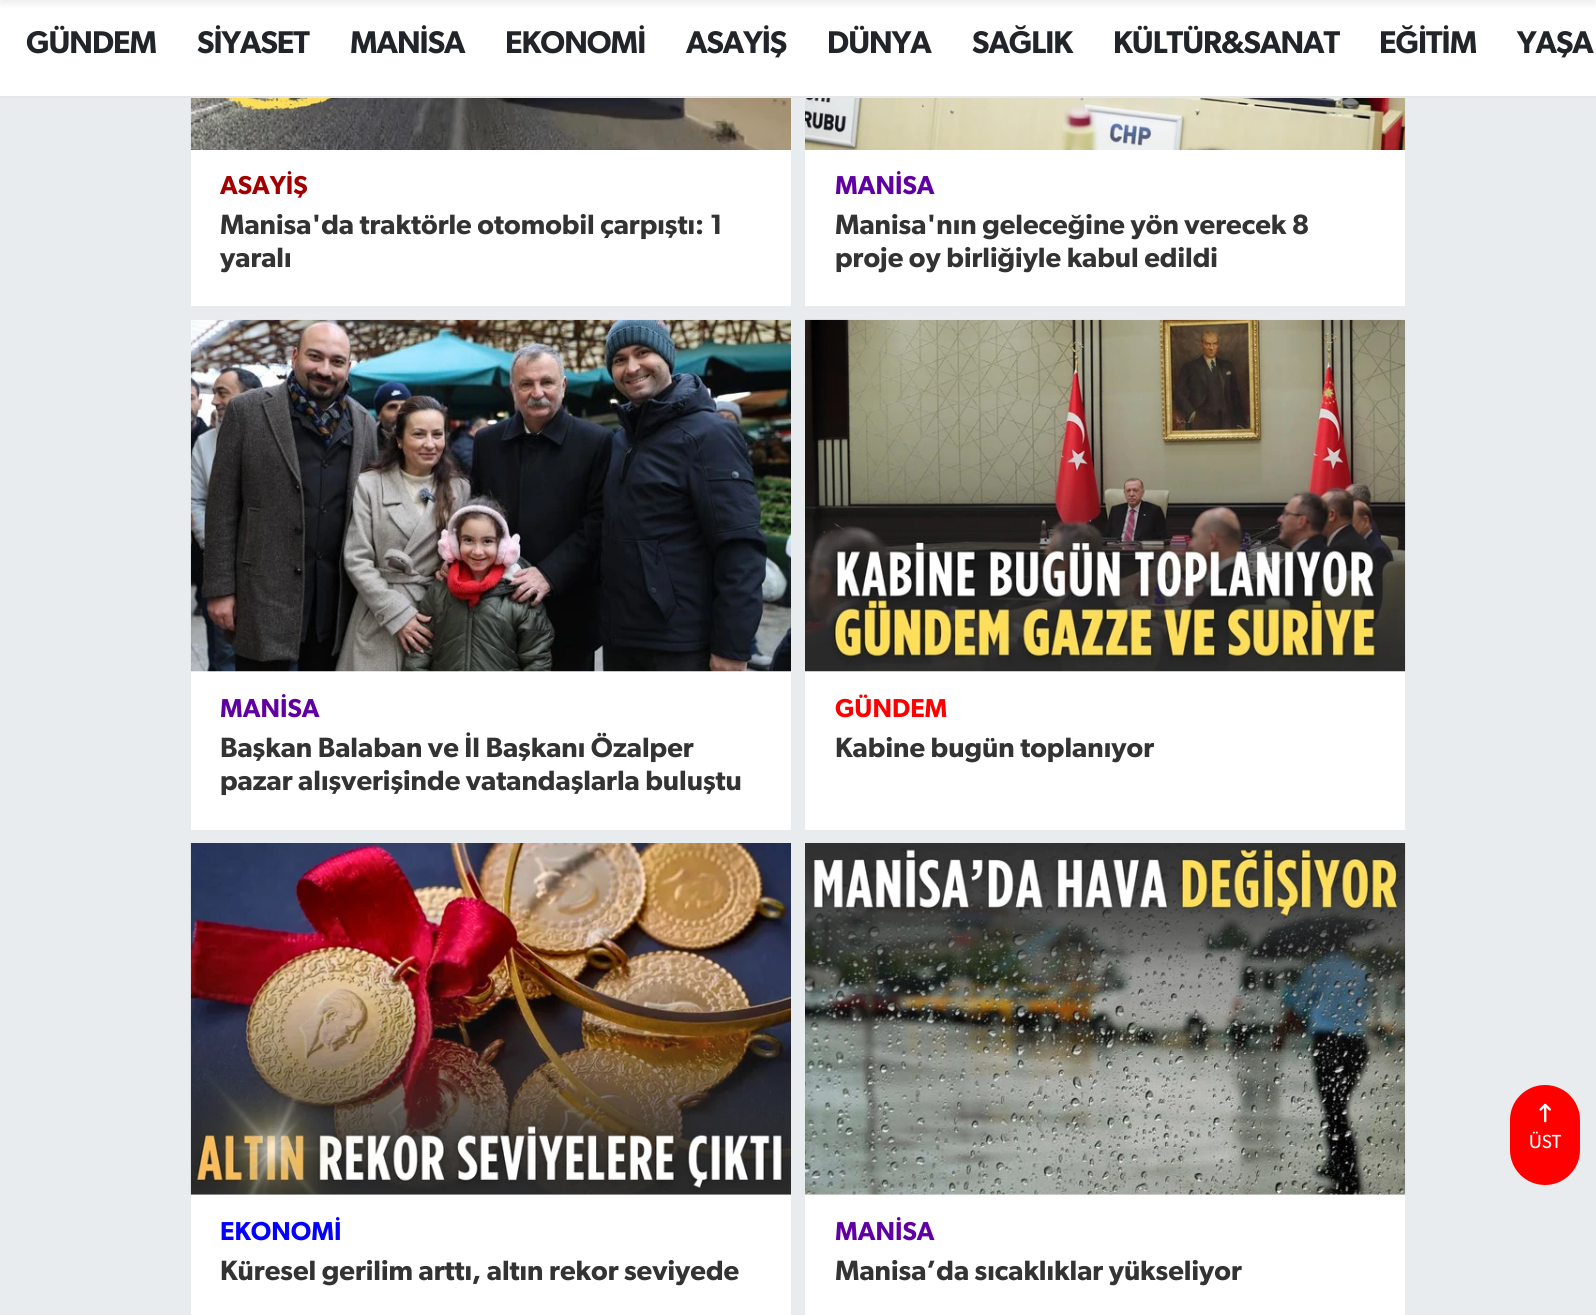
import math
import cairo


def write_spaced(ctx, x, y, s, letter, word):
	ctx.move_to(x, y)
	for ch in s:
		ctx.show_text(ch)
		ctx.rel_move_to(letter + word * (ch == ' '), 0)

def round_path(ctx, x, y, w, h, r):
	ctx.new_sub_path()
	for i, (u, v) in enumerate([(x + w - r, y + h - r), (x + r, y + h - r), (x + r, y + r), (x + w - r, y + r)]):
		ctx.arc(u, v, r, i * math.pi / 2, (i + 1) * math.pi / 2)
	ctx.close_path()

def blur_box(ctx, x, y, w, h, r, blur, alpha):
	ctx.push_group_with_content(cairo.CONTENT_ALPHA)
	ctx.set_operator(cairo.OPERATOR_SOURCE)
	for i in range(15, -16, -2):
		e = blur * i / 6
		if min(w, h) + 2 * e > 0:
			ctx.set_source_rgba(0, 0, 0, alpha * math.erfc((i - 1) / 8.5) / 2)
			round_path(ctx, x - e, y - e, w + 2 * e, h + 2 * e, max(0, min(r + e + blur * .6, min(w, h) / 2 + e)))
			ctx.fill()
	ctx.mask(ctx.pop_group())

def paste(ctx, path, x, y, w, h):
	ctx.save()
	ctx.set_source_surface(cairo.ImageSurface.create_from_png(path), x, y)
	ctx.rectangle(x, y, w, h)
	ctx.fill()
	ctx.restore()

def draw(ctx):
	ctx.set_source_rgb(0.914, 0.925, 0.937)
	ctx.paint()
	ctx.set_source_rgb(1, 1, 1)
	ctx.rectangle(0, 0, 1596, 96)
	ctx.fill()
	ctx.set_source_rgb(0, 0, 0)
	blur_box(ctx, 0, -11, 1596, 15, 0, 3.5, 0.07)
	ctx.set_source_rgb(0.902, 0.902, 0.902)
	ctx.rectangle(0, 96, 1596, 2)
	ctx.fill()
	ctx.select_font_face('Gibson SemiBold')
	ctx.set_font_size(31.5)
	ctx.set_source_rgb(0.129, 0.145, 0.161)
	for x, y, s in [
		(26, 53, 'GÜNDEM'),
		(197, 53, 'SİYASET'),
		(350, 53, 'MANİSA'),
		(505, 53, 'EKONOMİ'),
		(686, 53, 'ASAYİŞ'),
		(827, 53, 'DÜNYA'),
		(972, 53, 'SAĞLIK'),
		(1113, 53, 'KÜLTÜR&SANAT'),
		(1379, 53, 'EĞİTİM'),
		(1517, 53, 'YAŞA'),
	]:
		write_spaced(ctx, x, y, s, -1, 0)
	ctx.set_source_rgb(1, 1, 1)
	ctx.rectangle(191, 150, 600, 156)
	ctx.fill()
	paste(ctx, 'media/1.png', 190, 98, 601, 52)
	ctx.set_font_size(26)
	ctx.set_source_rgb(0.635, 0, 0)
	ctx.move_to(220, 194)
	ctx.show_text('ASAYİŞ')
	ctx.set_font_size(28)
	ctx.set_source_rgb(0.2, 0.2, 0.2)
	ctx.move_to(220, 234)
	ctx.show_text('Manisa\'da traktörle otomobil çarpıştı: 1')
	ctx.move_to(220, 267)
	ctx.show_text('yaralı')
	ctx.set_source_rgb(1, 1, 1)
	ctx.rectangle(805, 150, 600, 156)
	ctx.fill()
	paste(ctx, 'media/2.png', 805, 98, 601, 52)
	ctx.set_font_size(26)
	ctx.set_source_rgb(0.38, 0, 0.635)
	ctx.move_to(835, 194)
	ctx.show_text('MANİSA')
	ctx.set_font_size(28)
	ctx.set_source_rgb(0.2, 0.2, 0.2)
	ctx.move_to(835, 234)
	ctx.show_text('Manisa\'nın geleceğine yön verecek 8')
	ctx.move_to(835, 267)
	ctx.show_text('proje oy birliğiyle kabul edildi')
	ctx.set_source_rgb(1, 1, 1)
	ctx.rectangle(191, 671, 600, 159)
	ctx.fill()
	paste(ctx, 'media/3.png', 190, 319, 601, 353)
	ctx.set_font_size(26)
	ctx.set_source_rgb(0.38, 0, 0.635)
	ctx.move_to(220, 717)
	ctx.show_text('MANİSA')
	ctx.set_font_size(28)
	ctx.set_source_rgb(0.2, 0.2, 0.2)
	ctx.move_to(220, 757)
	ctx.show_text('Başkan Balaban ve İl Başkanı Özalper')
	ctx.move_to(220, 790)
	ctx.show_text('pazar alışverişinde vatandaşlarla buluştu')
	ctx.set_source_rgb(1, 1, 1)
	ctx.rectangle(805, 671, 600, 159)
	ctx.fill()
	paste(ctx, 'media/4.png', 805, 319, 601, 353)
	ctx.set_font_size(26)
	ctx.set_source_rgb(1, 0, 0)
	ctx.move_to(835, 717)
	ctx.show_text('GÜNDEM')
	ctx.set_font_size(28)
	ctx.set_source_rgb(0.2, 0.2, 0.2)
	ctx.move_to(835, 757)
	ctx.show_text('Kabine bugün toplanıyor')
	ctx.set_source_rgb(1, 1, 1)
	ctx.rectangle(191, 1194, 600, 121)
	ctx.fill()
	paste(ctx, 'media/5.png', 190, 843, 601, 352)
	ctx.set_font_size(26)
	ctx.set_source_rgb(0.016, 0, 1)
	ctx.move_to(220, 1240)
	ctx.show_text('EKONOMİ')
	ctx.set_font_size(28)
	ctx.set_source_rgb(0.2, 0.2, 0.2)
	ctx.move_to(220, 1280)
	ctx.show_text('Küresel gerilim arttı, altın rekor seviyede')
	ctx.set_source_rgb(1, 1, 1)
	ctx.rectangle(805, 1194, 600, 121)
	ctx.fill()
	paste(ctx, 'media/6.png', 805, 843, 601, 352)
	ctx.set_font_size(26)
	ctx.set_source_rgb(0.38, 0, 0.635)
	ctx.move_to(835, 1240)
	ctx.show_text('MANİSA')
	ctx.set_font_size(28)
	ctx.set_source_rgb(0.2, 0.2, 0.2)
	ctx.move_to(835, 1280)
	ctx.show_text('Manisa’da sıcaklıklar yükseliyor')
	ctx.set_source_rgb(1, 0, 0)
	round_path(ctx, 1510, 1085, 70, 100, 35)
	ctx.fill()
	paste(ctx, 'media/7.png', 1539, 1103, 12, 20)
	ctx.select_font_face('Gibson')
	ctx.set_font_size(19)
	ctx.set_source_rgb(1, 1, 1)
	ctx.move_to(1529, 1148)
	ctx.show_text('ÜST')


surface = cairo.ImageSurface(cairo.FORMAT_RGB24, 1596, 1315)
ctx = cairo.Context(surface)
options = cairo.FontOptions()
options.set_hint_metrics(cairo.HINT_METRICS_OFF)
options.set_hint_style(cairo.HINT_STYLE_NONE)
ctx.set_font_options(options)
ctx.set_miter_limit(4)
draw(ctx)
surface.write_to_png('image.png')
